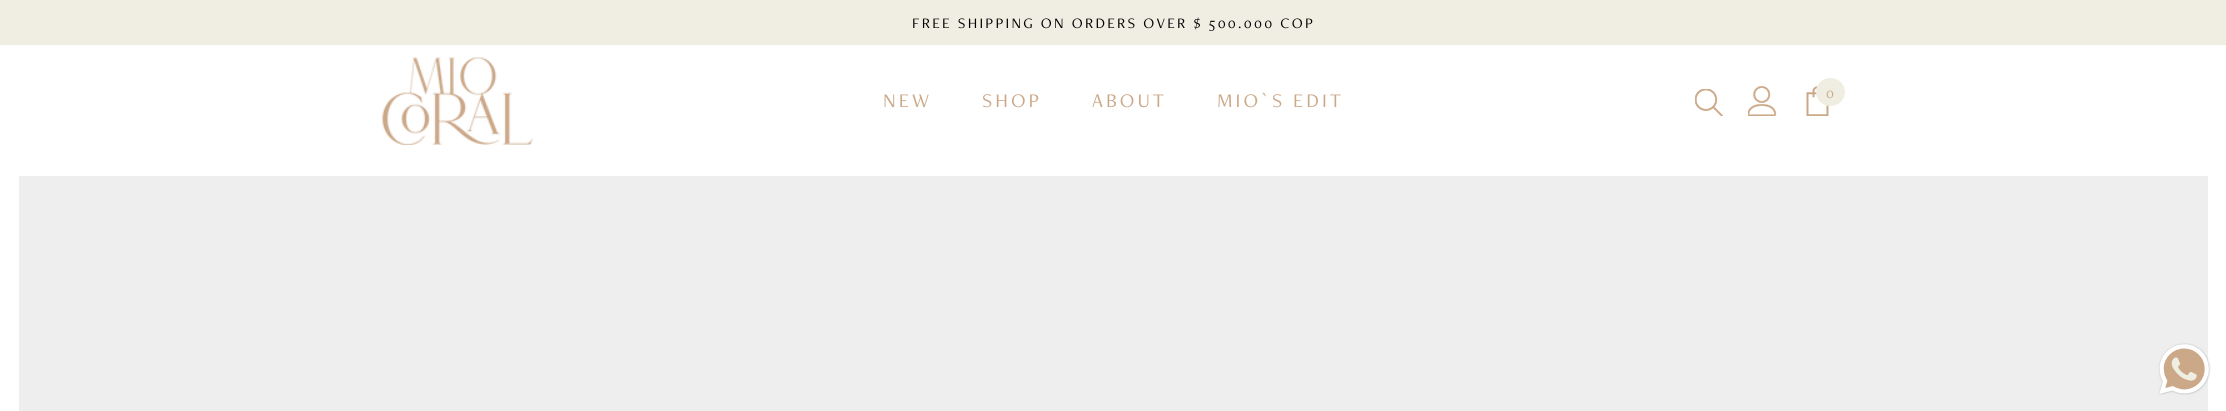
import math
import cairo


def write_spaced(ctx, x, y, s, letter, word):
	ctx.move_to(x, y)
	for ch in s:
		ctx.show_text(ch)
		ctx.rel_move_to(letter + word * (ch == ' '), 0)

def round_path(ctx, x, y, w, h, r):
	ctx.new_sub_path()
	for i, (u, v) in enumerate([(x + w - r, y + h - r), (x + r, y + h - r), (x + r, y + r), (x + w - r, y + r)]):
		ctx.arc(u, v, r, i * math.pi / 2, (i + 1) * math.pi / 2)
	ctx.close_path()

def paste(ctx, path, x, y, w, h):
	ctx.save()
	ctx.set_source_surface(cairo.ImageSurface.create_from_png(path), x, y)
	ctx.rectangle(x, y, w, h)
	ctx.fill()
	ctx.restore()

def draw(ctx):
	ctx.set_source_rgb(1, 1, 1)
	ctx.paint()
	ctx.set_source_rgb(0.941, 0.929, 0.886)
	ctx.rectangle(0, 0, 2226, 45)
	ctx.fill()
	ctx.select_font_face('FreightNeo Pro')
	ctx.set_font_size(15)
	ctx.set_source_rgb(0, 0, 0)
	write_spaced(ctx, 912, 28, 'FREE SHIPPING ON ORDERS OVER $ 500.000 COP', 2.25, 0)
	paste(ctx, 'media/1.png', 382, 57, 151, 88)
	ctx.set_font_size(20)
	ctx.set_source_rgb(0.796, 0.659, 0.533)
	for x, y, s in [
		(883, 107, 'NEW'),
		(982, 107, 'SHOP'),
		(1092, 107, 'ABOUT'),
		(1217, 107, 'MIO`S EDIT'),
	]:
		write_spaced(ctx, x, y, s, 3, 0)
	paste(ctx, 'media/2.png', 1695, 89, 28, 27)
	paste(ctx, 'media/3.png', 1748, 86, 29, 30)
	paste(ctx, 'media/4.png', 1806, 86, 23, 30)
	ctx.set_source_rgb(0.941, 0.929, 0.886)
	round_path(ctx, 1816, 78, 29, 28, 14)
	ctx.fill()
	ctx.set_font_size(15)
	ctx.set_source_rgb(0.796, 0.659, 0.533)
	ctx.move_to(1826, 98)
	ctx.show_text('0')
	ctx.set_source_rgb(0.933, 0.933, 0.933)
	ctx.rectangle(19, 176, 2189, 235)
	ctx.fill()
	paste(ctx, 'media/5.png', 2158, 343, 53, 52)


surface = cairo.ImageSurface(cairo.FORMAT_RGB24, 2226, 411)
ctx = cairo.Context(surface)
options = cairo.FontOptions()
options.set_hint_metrics(cairo.HINT_METRICS_OFF)
options.set_hint_style(cairo.HINT_STYLE_NONE)
ctx.set_font_options(options)
ctx.set_miter_limit(4)
draw(ctx)
surface.write_to_png('image.png')
